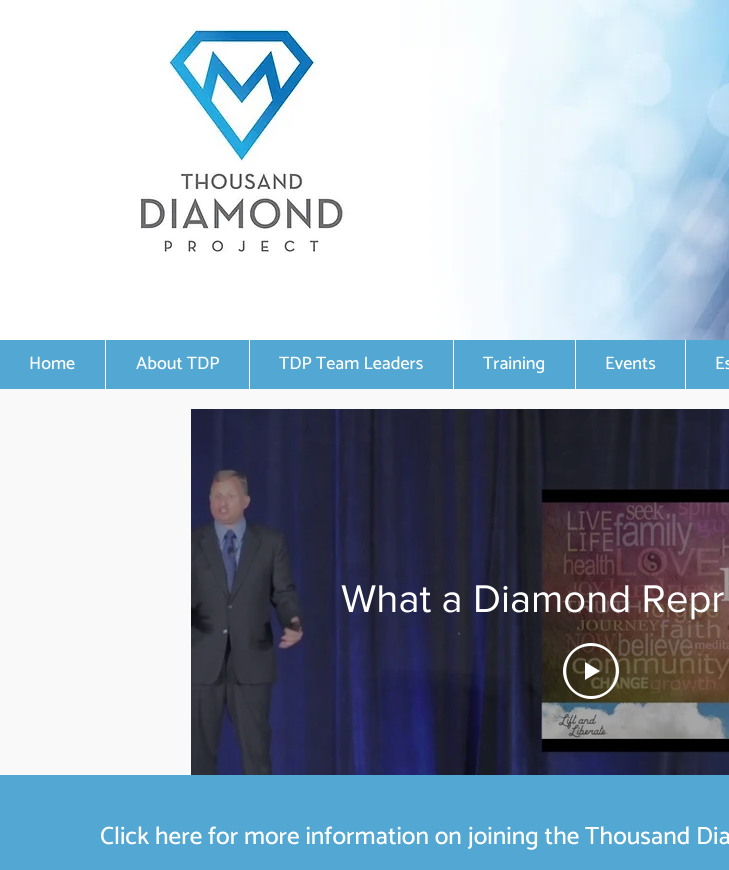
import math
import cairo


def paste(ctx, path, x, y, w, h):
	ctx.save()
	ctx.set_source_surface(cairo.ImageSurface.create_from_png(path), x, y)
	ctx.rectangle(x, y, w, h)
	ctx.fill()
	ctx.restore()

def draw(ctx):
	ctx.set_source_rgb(0.973, 0.973, 0.973)
	ctx.paint()
	ctx.set_source_rgb(1, 1, 1)
	ctx.rectangle(0, 0, 140, 340)
	ctx.fill()
	paste(ctx, 'media/1.png', 140, 0, 589, 340)
	ctx.set_source_rgb(0.325, 0.655, 0.827)
	ctx.rectangle(0, 340, 729, 49)
	ctx.fill()
	ctx.select_font_face('Catamaran Medium')
	ctx.set_font_size(18)
	ctx.set_source_rgb(1, 1, 1)
	ctx.move_to(29, 369)
	ctx.show_text('Home')
	ctx.rectangle(105, 340, 1, 49)
	ctx.fill()
	ctx.move_to(136, 369)
	ctx.show_text('About TDP')
	ctx.rectangle(249, 340, 1, 49)
	ctx.fill()
	ctx.move_to(279, 369)
	ctx.show_text('TDP Team Leaders')
	ctx.rectangle(453, 340, 1, 49)
	ctx.fill()
	ctx.move_to(483, 369)
	ctx.show_text('Training')
	ctx.rectangle(575, 340, 1, 49)
	ctx.fill()
	ctx.move_to(605, 369)
	ctx.show_text('Events')
	ctx.rectangle(685, 340, 1, 49)
	ctx.fill()
	ctx.move_to(715, 369)
	ctx.show_text('Es')
	paste(ctx, 'media/2.png', 191, 409, 538, 366)
	ctx.select_font_face('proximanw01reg')
	ctx.set_font_size(40)
	ctx.move_to(341, 612)
	ctx.show_text('What a Diamond Repr')
	ctx.set_fill_rule(cairo.FILL_RULE_EVEN_ODD)
	ctx.new_path()
	ctx.move_to(591, 696)
	ctx.curve_to(624, 696, 624, 646, 591, 646)
	ctx.curve_to(558, 646, 558, 696, 591, 696)
	ctx.close_path()
	ctx.move_to(591, 699)
	ctx.curve_to(576, 699, 563, 686, 563, 671)
	ctx.curve_to(563, 656, 576, 643, 591, 643)
	ctx.curve_to(606, 643, 619, 656, 619, 671)
	ctx.curve_to(619, 686, 606, 699, 591, 699)
	ctx.close_path()
	ctx.fill()
	ctx.new_path()
	ctx.move_to(600, 671)
	ctx.line_to(585, 680)
	ctx.line_to(585, 662)
	ctx.close_path()
	ctx.fill()
	ctx.set_source_rgb(0.325, 0.655, 0.827)
	ctx.rectangle(0, 775, 729, 95)
	ctx.fill()
	ctx.select_font_face('Catamaran Medium')
	ctx.set_font_size(25)
	ctx.set_source_rgb(1, 1, 1)
	ctx.move_to(100, 844)
	ctx.show_text('Click here for more information on joining the Thousand Dia')


surface = cairo.ImageSurface(cairo.FORMAT_RGB24, 729, 870)
ctx = cairo.Context(surface)
options = cairo.FontOptions()
options.set_hint_metrics(cairo.HINT_METRICS_OFF)
options.set_hint_style(cairo.HINT_STYLE_NONE)
ctx.set_font_options(options)
ctx.set_miter_limit(4)
draw(ctx)
surface.write_to_png('image.png')
